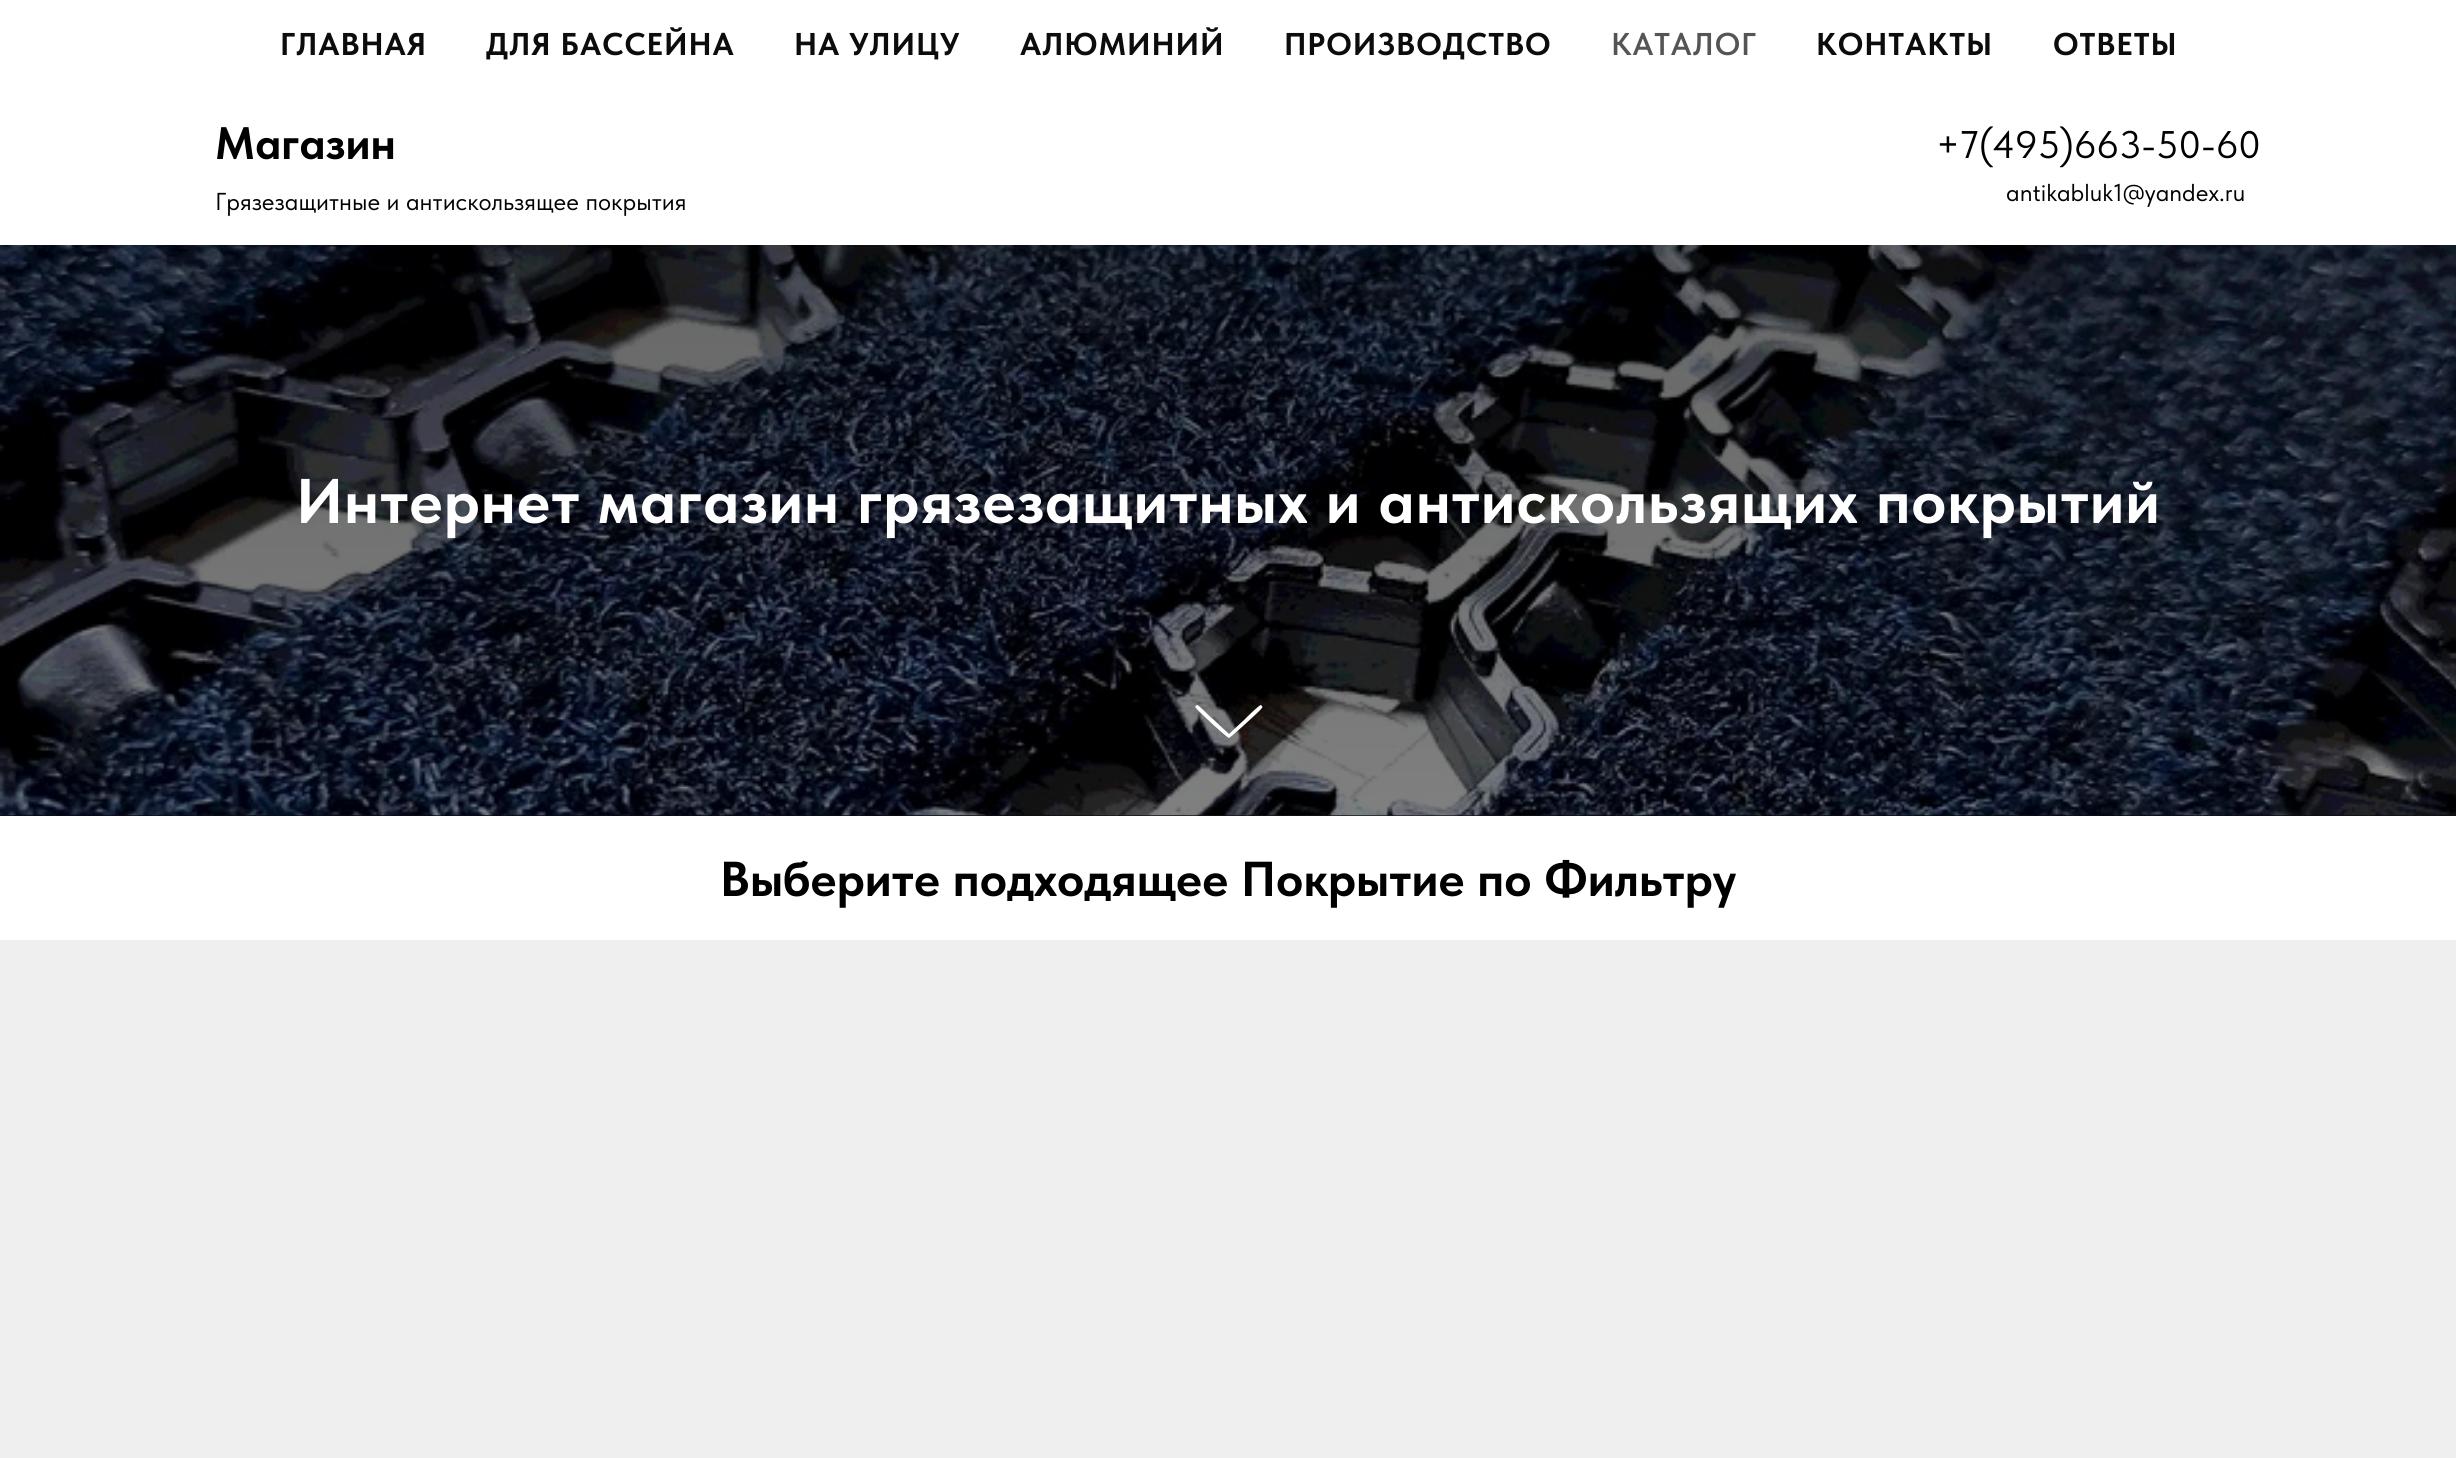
import math
import cairo


def write_spaced(ctx, x, y, s, letter, word):
	ctx.move_to(x, y)
	for ch in s:
		ctx.show_text(ch)
		ctx.rel_move_to(letter + word * (ch == ' '), 0)

def paste(ctx, path, x, y, w, h):
	ctx.save()
	ctx.set_source_surface(cairo.ImageSurface.create_from_png(path), x, y)
	ctx.rectangle(x, y, w, h)
	ctx.fill()
	ctx.restore()

def draw(ctx):
	ctx.set_source_rgb(1, 1, 1)
	ctx.paint()
	ctx.select_font_face('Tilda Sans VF', cairo.FONT_SLANT_NORMAL, cairo.FONT_WEIGHT_BOLD)
	ctx.set_font_size(31.5)
	ctx.set_source_rgb(0.051, 0.047, 0.047)
	for x, y, s in [
		(280, 55, 'ГЛАВНАЯ'),
		(486, 55, 'ДЛЯ БАССЕЙНА'),
		(794, 55, 'НА УЛИЦУ'),
		(1020, 55, 'АЛЮМИНИЙ'),
		(1284, 55, 'ПРОИЗВОДСТВО'),
	]:
		write_spaced(ctx, x, y, s, 0.88, 0)
	ctx.select_font_face('Tilda Sans VF SemiBold')
	ctx.set_source_rgb(0.337, 0.333, 0.333)
	write_spaced(ctx, 1611, 55, 'КАТАЛОГ', 0.88, 0)
	ctx.select_font_face('Tilda Sans VF', cairo.FONT_SLANT_NORMAL, cairo.FONT_WEIGHT_BOLD)
	ctx.set_source_rgb(0.051, 0.047, 0.047)
	write_spaced(ctx, 1816, 55, 'КОНТАКТЫ', 0.88, 0)
	write_spaced(ctx, 2053, 55, 'ОТВЕТЫ', 0.88, 0)
	ctx.set_font_size(45.5)
	ctx.set_source_rgb(0, 0, 0)
	ctx.move_to(215, 159)
	ctx.show_text('Магазин')
	ctx.select_font_face('Tilda Sans VF')
	ctx.set_font_size(38.5)
	ctx.move_to(1936, 158)
	ctx.show_text('+7(495)663-50-60')
	ctx.set_font_size(24.5)
	ctx.move_to(215, 210)
	ctx.show_text('Грязезащитные и антискользящее покрытия')
	ctx.move_to(2006, 201)
	ctx.show_text('antikabluk1@yandex.ru')
	ctx.rectangle(0, 815, 2456, 1)
	ctx.fill()
	paste(ctx, 'media/1.png', 0, 815, 2456, 1)
	paste(ctx, 'media/2.png', 0, 245, 2456, 571)
	gradient = cairo.LinearGradient(1229, 245, 1229, 816)
	gradient.add_color_stop_rgba(0, 0, 0, 0, 0.6)
	gradient.add_color_stop_rgba(1, 0, 0, 0, 0.5)
	ctx.set_source(gradient)
	ctx.rectangle(0, 245, 2456, 571)
	ctx.fill()
	ctx.select_font_face('Tilda Sans VF', cairo.FONT_SLANT_NORMAL, cairo.FONT_WEIGHT_BOLD)
	ctx.set_font_size(63)
	ctx.set_source_rgb(1, 1, 1)
	write_spaced(ctx, 296, 523, 'Интернет магазин грязезащитных и антискользящих покрытий', 0.88, 0)
	ctx.new_path()
	ctx.move_to(1229, 738)
	ctx.curve_to(1227, 738, 1199, 712, 1196, 708)
	ctx.curve_to(1195, 707, 1195, 706, 1197, 705)
	ctx.curve_to(1199, 705, 1211, 718, 1214, 720)
	ctx.line_to(1229, 734)
	ctx.line_to(1244, 720)
	ctx.curve_to(1246, 718, 1259, 705, 1261, 705)
	ctx.curve_to(1262, 706, 1263, 707, 1262, 708)
	ctx.curve_to(1260, 711, 1230, 738, 1229, 738)
	ctx.close_path()
	ctx.fill()
	ctx.set_font_size(49)
	ctx.set_source_rgb(0, 0, 0)
	ctx.move_to(720, 896)
	ctx.show_text('Выберите подходящее Покрытие по Фильтру')
	ctx.set_source_rgb(0.937, 0.937, 0.937)
	ctx.rectangle(0, 940, 2456, 518)
	ctx.fill()


surface = cairo.ImageSurface(cairo.FORMAT_RGB24, 2456, 1458)
ctx = cairo.Context(surface)
options = cairo.FontOptions()
options.set_hint_metrics(cairo.HINT_METRICS_OFF)
options.set_hint_style(cairo.HINT_STYLE_NONE)
ctx.set_font_options(options)
ctx.set_miter_limit(4)
draw(ctx)
surface.write_to_png('image.png')
